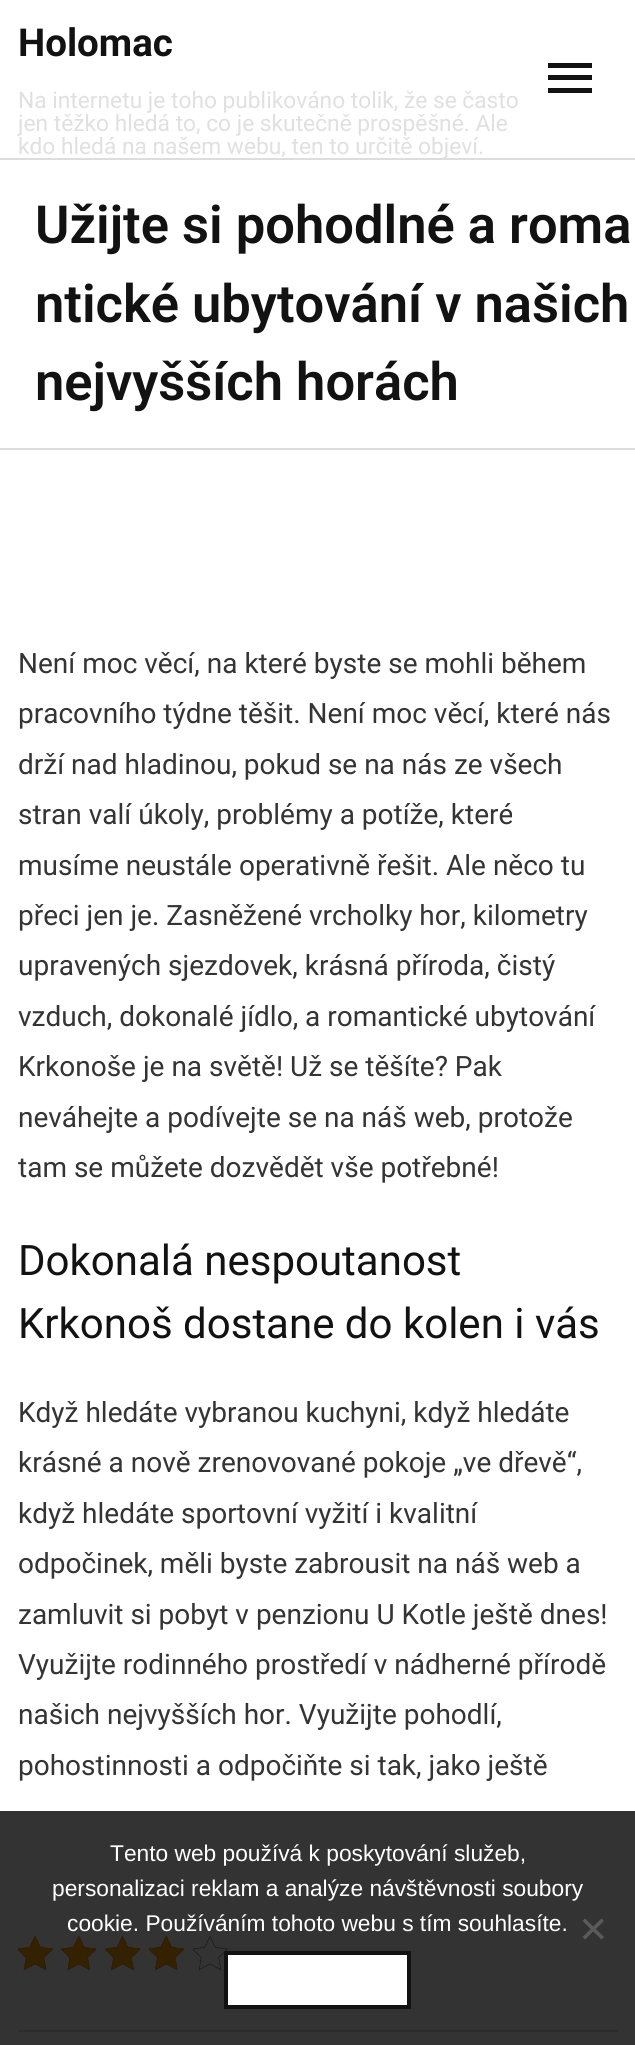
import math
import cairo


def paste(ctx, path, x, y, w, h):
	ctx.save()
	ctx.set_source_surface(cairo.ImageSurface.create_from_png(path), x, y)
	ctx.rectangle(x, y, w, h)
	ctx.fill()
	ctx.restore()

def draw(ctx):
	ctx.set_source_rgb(1, 1, 1)
	ctx.paint()
	ctx.set_source_rgb(0.867, 0.867, 0.867)
	ctx.rectangle(0, 158, 635, 2)
	ctx.fill()
	ctx.select_font_face('Roboto', cairo.FONT_SLANT_NORMAL, cairo.FONT_WEIGHT_BOLD)
	ctx.set_font_size(38.5)
	ctx.set_source_rgb(0.071, 0.071, 0.071)
	ctx.move_to(18, 56)
	ctx.show_text('Holomac')
	ctx.select_font_face('Roboto')
	ctx.set_font_size(22.75)
	ctx.set_source_rgb(0.878, 0.878, 0.878)
	for x, y, s in [
		(18, 108, 'Na internetu je toho publikováno tolik, že se často'),
		(18, 131, 'jen těžko hledá to, co je skutečně prospěšné. Ale'),
		(18, 154, 'kdo hledá na našem webu, ten to určitě objeví.'),
	]:
		ctx.move_to(x, y)
		ctx.show_text(s)
	ctx.set_source_rgb(0.071, 0.071, 0.071)
	ctx.rectangle(548, 63, 44, 5)
	ctx.rectangle(548, 75, 44, 5)
	ctx.rectangle(548, 88, 44, 5)
	ctx.fill()
	ctx.set_source_rgb(0.867, 0.867, 0.867)
	ctx.rectangle(0, 448, 635, 2)
	ctx.fill()
	ctx.select_font_face('Roboto SemiBold')
	ctx.set_font_size(52.5)
	ctx.set_source_rgb(0.071, 0.071, 0.071)
	for x, y, s in [
		(35, 243, 'Užijte si pohodlné a roma'),
		(35, 322, 'ntické ubytování v našich'),
		(35, 400, 'nejvyšších horách'),
	]:
		ctx.move_to(x, y)
		ctx.show_text(s)
	ctx.select_font_face('Roboto')
	ctx.set_font_size(28)
	ctx.set_source_rgb(0.204, 0.204, 0.204)
	for x, y, s in [
		(18, 673, 'Není moc věcí, na které byste se mohli během'),
		(18, 723, 'pracovního týdne těšit. Není moc věcí, které nás'),
		(18, 774, 'drží nad hladinou, pokud se na nás ze všech'),
		(18, 824, 'stran valí úkoly, problémy a potíže, které'),
		(18, 875, 'musíme neustále operativně řešit. Ale něco tu'),
		(18, 925, 'přeci jen je. Zasněžené vrcholky hor, kilometry'),
		(18, 975, 'upravených sjezdovek, krásná příroda, čistý'),
		(18, 1026, 'vzduch, dokonalé jídlo, a romantické ubytování'),
		(18, 1076, 'Krkonoše je na světě! Už se těšíte? Pak'),
		(18, 1127, 'neváhejte a podívejte se na náš web, protože'),
		(18, 1177, 'tam se můžete dozvědět vše potřebné!'),
	]:
		ctx.move_to(x, y)
		ctx.show_text(s)
	ctx.set_font_size(42)
	ctx.set_source_rgb(0.071, 0.071, 0.071)
	ctx.move_to(18, 1275)
	ctx.show_text('Dokonalá nespoutanost')
	ctx.move_to(18, 1338)
	ctx.show_text('Krkonoš dostane do kolen i vás')
	ctx.set_font_size(28)
	ctx.set_source_rgb(0.204, 0.204, 0.204)
	for x, y, s in [
		(18, 1422, 'Když hledáte vybranou kuchyni, když hledáte'),
		(18, 1472, 'krásné a nově zrenovované pokoje „ve dřevě“,'),
		(18, 1523, 'když hledáte sportovní vyžití i kvalitní'),
		(18, 1573, 'odpočinek, měli byste zabrousit na náš web a'),
		(18, 1624, 'zamluvit si pobyt v penzionu U Kotle ještě dnes!'),
		(18, 1674, 'Využijte rodinného prostředí v nádherné přírodě'),
		(18, 1724, 'našich nejvyšších hor. Využijte pohodlí,'),
		(18, 1775, 'pohostinnosti a odpočiňte si tak, jako ještě'),
	]:
		ctx.move_to(x, y)
		ctx.show_text(s)
	paste(ctx, 'media/1.png', 18, 1936, 35, 35)
	paste(ctx, 'media/2.png', 61, 1936, 35, 35)
	paste(ctx, 'media/3.png', 105, 1936, 35, 35)
	paste(ctx, 'media/4.png', 149, 1936, 35, 35)
	paste(ctx, 'media/1.png', 193, 1936, 35, 35)
	paste(ctx, 'media/5.png', 18, 1936, 35, 35)
	paste(ctx, 'media/6.png', 61, 1936, 35, 35)
	paste(ctx, 'media/7.png', 105, 1936, 35, 35)
	paste(ctx, 'media/8.png', 149, 1936, 35, 35)
	ctx.set_source_rgb(0.867, 0.867, 0.867)
	ctx.rectangle(18, 2030, 600, 2)
	ctx.fill()
	ctx.set_source_rgba(0, 0, 0, 0.8)
	ctx.rectangle(0, 1811, 635, 234)
	ctx.fill()
	ctx.select_font_face('Liberation Sans')
	ctx.set_font_size(22.75)
	ctx.set_source_rgb(1, 1, 1)
	for x, y, s in [
		(110, 1861, 'Tento web používá k poskytování služeb,'),
		(52, 1896, 'personalizaci reklam a analýze návštěvnosti soubory'),
		(67, 1931, 'cookie. Používáním tohoto webu s tím souhlasíte.'),
	]:
		ctx.move_to(x, y)
		ctx.show_text(s)
	ctx.set_source_rgb(0.353, 0.353, 0.353)
	ctx.new_path()
	ctx.move_to(601.5, 1918.5)
	ctx.line_to(604, 1921)
	ctx.line_to(585, 1939.5)
	ctx.line_to(582.5, 1937)
	ctx.close_path()
	ctx.fill()
	ctx.new_path()
	ctx.move_to(582.5, 1921)
	ctx.line_to(585, 1918.5)
	ctx.line_to(604, 1937)
	ctx.line_to(601.5, 1939.5)
	ctx.close_path()
	ctx.fill()
	ctx.set_source_rgb(1, 1, 1)
	ctx.rectangle(226, 1953, 183, 54)
	ctx.fill_preserve()
	ctx.set_source_rgb(0.071, 0.071, 0.071)
	ctx.set_line_width(4)
	ctx.stroke()


surface = cairo.ImageSurface(cairo.FORMAT_RGB24, 635, 2045)
ctx = cairo.Context(surface)
options = cairo.FontOptions()
options.set_hint_metrics(cairo.HINT_METRICS_OFF)
options.set_hint_style(cairo.HINT_STYLE_NONE)
ctx.set_font_options(options)
ctx.set_miter_limit(4)
draw(ctx)
surface.write_to_png('image.png')
